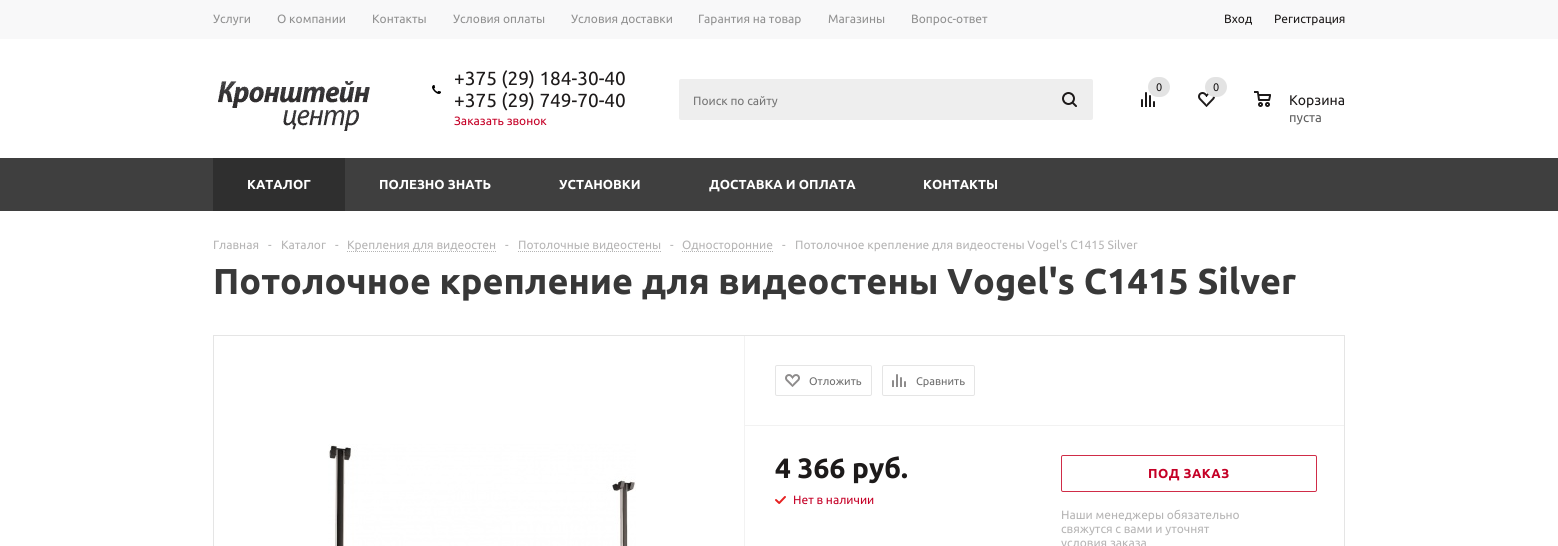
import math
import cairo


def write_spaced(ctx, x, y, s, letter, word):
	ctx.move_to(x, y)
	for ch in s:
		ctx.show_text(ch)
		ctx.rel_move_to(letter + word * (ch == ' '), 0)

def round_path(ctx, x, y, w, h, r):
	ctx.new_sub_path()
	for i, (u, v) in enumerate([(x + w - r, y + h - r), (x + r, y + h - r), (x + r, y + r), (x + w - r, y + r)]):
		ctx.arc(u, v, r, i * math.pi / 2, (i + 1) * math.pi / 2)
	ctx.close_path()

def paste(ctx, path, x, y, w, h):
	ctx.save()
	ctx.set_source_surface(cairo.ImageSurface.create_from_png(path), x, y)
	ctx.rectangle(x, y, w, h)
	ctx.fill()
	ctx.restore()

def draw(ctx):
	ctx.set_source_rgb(1, 1, 1)
	ctx.paint()
	ctx.set_source_rgb(0.969, 0.969, 0.976)
	ctx.rectangle(0, 0, 1558, 39)
	ctx.fill()
	ctx.select_font_face('Ubuntu')
	ctx.set_font_size(12)
	ctx.set_source_rgb(0.569, 0.569, 0.569)
	for x, y, s in [
		(213, 23, 'Услуги'),
		(277, 23, 'О компании'),
		(372, 23, 'Контакты'),
		(453, 23, 'Условия оплаты'),
		(571, 23, 'Условия доставки'),
		(698, 23, 'Гарантия на товар'),
		(828, 23, 'Магазины'),
		(911, 23, 'Вопрос-ответ'),
	]:
		ctx.move_to(x, y)
		ctx.show_text(s)
	ctx.set_source_rgb(0.114, 0.102, 0.102)
	ctx.move_to(1224, 23)
	ctx.show_text('Вход')
	ctx.move_to(1274, 23)
	ctx.show_text('Регистрация')
	paste(ctx, 'media/1.png', 218, 81, 152, 50)
	paste(ctx, 'media/2.png', 432, 85, 9, 9)
	ctx.set_font_size(19)
	ctx.move_to(454, 85)
	ctx.show_text('+375 (29) 184-30-40')
	ctx.move_to(454, 107)
	ctx.show_text('+375 (29) 749-70-40')
	ctx.set_font_size(12)
	ctx.set_source_rgb(0.773, 0, 0.149)
	ctx.move_to(454, 125)
	ctx.show_text('Заказать звонок')
	ctx.set_source_rgb(0.933, 0.933, 0.933)
	round_path(ctx, 679, 79, 414, 41, 2)
	ctx.fill()
	ctx.set_source_rgb(0.459, 0.459, 0.459)
	ctx.move_to(693, 105)
	ctx.show_text('Поиск по сайту')
	paste(ctx, 'media/3.png', 1062, 92, 15, 15)
	paste(ctx, 'media/4.png', 1141, 92, 14, 15)
	ctx.set_source_rgb(0.89, 0.89, 0.89)
	round_path(ctx, 1148, 77, 22, 20, 10)
	ctx.fill()
	ctx.set_font_size(11)
	ctx.set_source_rgb(0.114, 0.102, 0.102)
	ctx.move_to(1156, 91)
	ctx.show_text('0')
	paste(ctx, 'media/5.png', 1198, 92, 17, 15)
	ctx.set_source_rgb(0.89, 0.89, 0.89)
	round_path(ctx, 1205, 77, 22, 20, 10)
	ctx.fill()
	ctx.set_source_rgb(0.114, 0.102, 0.102)
	ctx.move_to(1213, 91)
	ctx.show_text('0')
	paste(ctx, 'media/6.png', 1254, 91, 17, 16)
	ctx.set_font_size(14)
	ctx.move_to(1289, 105)
	ctx.show_text('Корзина')
	ctx.set_font_size(13)
	ctx.set_source_rgb(0.373, 0.373, 0.373)
	ctx.move_to(1289, 122)
	ctx.show_text('пуста')
	ctx.set_source_rgb(0.247, 0.247, 0.247)
	ctx.rectangle(0, 158, 1558, 53)
	ctx.fill()
	ctx.set_source_rgb(0.184, 0.184, 0.184)
	ctx.rectangle(213, 158, 132, 53)
	ctx.fill()
	ctx.select_font_face('Ubuntu', cairo.FONT_SLANT_NORMAL, cairo.FONT_WEIGHT_BOLD)
	ctx.set_source_rgb(1, 1, 1)
	for x, y, s in [
		(247, 189, 'КАТАЛОГ'),
		(379, 189, 'ПОЛЕЗНО ЗНАТЬ'),
		(559, 189, 'УСТАНОВКИ'),
		(709, 189, 'ДОСТАВКА И ОПЛАТА'),
		(923, 189, 'КОНТАКТЫ'),
	]:
		ctx.move_to(x, y)
		ctx.show_text(s)
	ctx.select_font_face('Ubuntu')
	ctx.set_font_size(12)
	ctx.set_source_rgb(0.714, 0.71, 0.71)
	for x, y, s in [
		(213, 249, 'Главная'),
		(268, 249, '-'),
		(281, 249, 'Каталог'),
		(335, 249, '-'),
	]:
		ctx.move_to(x, y)
		ctx.show_text(s)
	ctx.new_path()
	ctx.move_to(347, 251.5)
	ctx.line_to(496, 251.5)
	ctx.set_source_rgb(0.706, 0.706, 0.706)
	ctx.set_line_width(1)
	ctx.set_dash([1, 1])
	ctx.stroke()
	ctx.set_source_rgb(0.714, 0.71, 0.71)
	for x, y, s in [
		(347, 249, 'Крепления для видеостен'),
		(505, 249, '-'),
		(518, 249, 'Потолочные видеостены'),
	]:
		ctx.move_to(x, y)
		ctx.show_text(s)
	ctx.new_path()
	ctx.move_to(518, 251.5)
	ctx.line_to(661, 251.5)
	ctx.set_source_rgb(0.706, 0.706, 0.706)
	ctx.stroke()
	ctx.set_source_rgb(0.714, 0.71, 0.71)
	ctx.move_to(670, 249)
	ctx.show_text('-')
	ctx.new_path()
	ctx.move_to(682, 251.5)
	ctx.line_to(773, 251.5)
	ctx.set_source_rgb(0.706, 0.706, 0.706)
	ctx.stroke()
	ctx.set_source_rgb(0.714, 0.71, 0.71)
	for x, y, s in [
		(682, 249, 'Односторонние'),
		(782, 249, '-'),
		(795, 249, 'Потолочное крепление для видеостены Vogel\'s C1415 Silver'),
	]:
		ctx.move_to(x, y)
		ctx.show_text(s)
	ctx.select_font_face('Ubuntu', cairo.FONT_SLANT_NORMAL, cairo.FONT_WEIGHT_BOLD)
	ctx.set_font_size(36)
	ctx.set_source_rgb(0.22, 0.22, 0.22)
	ctx.move_to(213, 294)
	ctx.show_text('Потолочное крепление для видеостены Vogel\'s C1415 Silver')
	ctx.rectangle(213.5, 335.5, 1131, 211)
	ctx.set_source_rgb(0.898, 0.898, 0.898)
	ctx.set_dash([])
	ctx.stroke()
	paste(ctx, 'media/7.png', 328, 444, 308, 102)
	ctx.set_source_rgb(0.949, 0.949, 0.949)
	ctx.rectangle(744, 336, 1, 210)
	ctx.fill()
	ctx.rectangle(745, 425, 599, 1)
	ctx.fill()
	round_path(ctx, 775.5, 365.5, 96, 30, 1.5)
	ctx.set_source_rgb(0.898, 0.898, 0.898)
	ctx.stroke()
	paste(ctx, 'media/8.png', 785, 374, 15, 13)
	ctx.select_font_face('Ubuntu')
	ctx.set_font_size(11)
	ctx.set_source_rgb(0.427, 0.427, 0.427)
	ctx.move_to(809, 385)
	ctx.show_text('Отложить')
	round_path(ctx, 882.5, 365.5, 92, 30, 1.5)
	ctx.set_source_rgb(0.898, 0.898, 0.898)
	ctx.stroke()
	paste(ctx, 'media/9.png', 892, 374, 14, 13)
	ctx.set_source_rgb(0.427, 0.427, 0.427)
	ctx.move_to(916, 385)
	ctx.show_text('Сравнить')
	ctx.select_font_face('Ubuntu', cairo.FONT_SLANT_NORMAL, cairo.FONT_WEIGHT_BOLD)
	ctx.set_font_size(28)
	ctx.set_source_rgb(0.114, 0.102, 0.102)
	ctx.move_to(775, 478)
	ctx.show_text('4 366 руб.')
	round_path(ctx, 1061.5, 455.5, 255, 36, 1.5)
	ctx.set_source_rgb(0.816, 0.173, 0.278)
	ctx.stroke()
	ctx.set_font_size(13)
	ctx.set_source_rgb(0.773, 0, 0.149)
	write_spaced(ctx, 1148, 478, 'ПОД ЗАКАЗ', 0.5, 0)
	ctx.select_font_face('Ubuntu')
	ctx.set_font_size(12)
	ctx.set_source_rgb(0.714, 0.71, 0.71)
	for x, y, s in [
		(1061, 519, 'Наши менеджеры обязательно'),
		(1061, 533, 'свяжутся с вами и уточнят'),
		(1061, 547, 'условия заказа'),
	]:
		ctx.move_to(x, y)
		ctx.show_text(s)
	paste(ctx, 'media/10.png', 775, 496, 11, 8)
	ctx.set_source_rgb(0.773, 0, 0.149)
	ctx.move_to(793, 504)
	ctx.show_text('Нет в наличии')


surface = cairo.ImageSurface(cairo.FORMAT_RGB24, 1558, 546)
ctx = cairo.Context(surface)
options = cairo.FontOptions()
options.set_hint_metrics(cairo.HINT_METRICS_OFF)
options.set_hint_style(cairo.HINT_STYLE_NONE)
ctx.set_font_options(options)
ctx.set_miter_limit(4)
draw(ctx)
surface.write_to_png('image.png')
